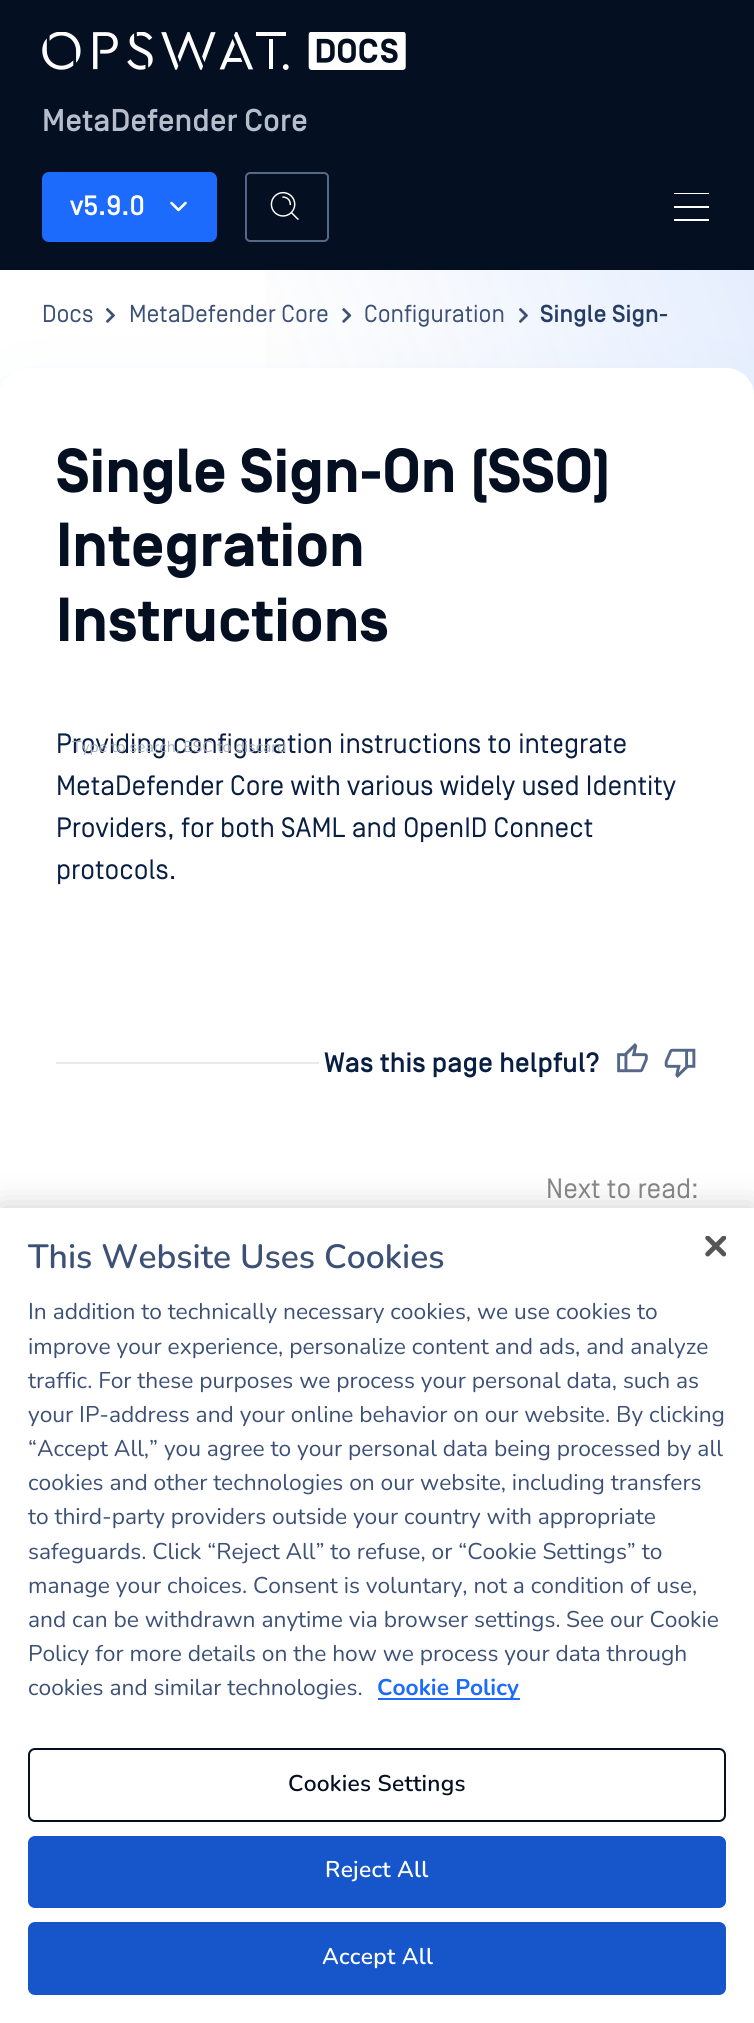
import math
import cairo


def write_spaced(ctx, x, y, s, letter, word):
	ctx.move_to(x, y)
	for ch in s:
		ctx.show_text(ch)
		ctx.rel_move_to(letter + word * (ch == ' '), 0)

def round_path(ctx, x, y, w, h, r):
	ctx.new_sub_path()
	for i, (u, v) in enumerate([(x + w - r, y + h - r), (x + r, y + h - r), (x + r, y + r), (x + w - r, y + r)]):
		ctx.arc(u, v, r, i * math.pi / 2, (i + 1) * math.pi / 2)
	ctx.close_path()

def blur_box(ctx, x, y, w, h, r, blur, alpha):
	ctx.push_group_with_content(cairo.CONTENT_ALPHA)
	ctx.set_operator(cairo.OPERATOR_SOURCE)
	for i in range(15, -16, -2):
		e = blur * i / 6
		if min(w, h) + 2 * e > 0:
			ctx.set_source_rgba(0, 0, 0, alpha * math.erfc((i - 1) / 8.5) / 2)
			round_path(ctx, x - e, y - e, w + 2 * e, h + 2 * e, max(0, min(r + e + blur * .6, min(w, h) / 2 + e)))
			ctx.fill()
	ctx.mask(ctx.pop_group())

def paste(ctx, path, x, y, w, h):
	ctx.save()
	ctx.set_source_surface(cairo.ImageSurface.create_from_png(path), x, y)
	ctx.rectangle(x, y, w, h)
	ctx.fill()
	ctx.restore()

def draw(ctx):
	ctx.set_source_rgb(1, 1, 1)
	ctx.paint()
	gradient = cairo.LinearGradient(-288, 1276, 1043, 790)
	gradient.add_color_stop_rgba(0.6, 0.965, 0.969, 0.976, 0.25)
	gradient.add_color_stop_rgba(1, 0.663, 0.776, 0.992, 0.37)
	ctx.set_source(gradient)
	ctx.rectangle(265, 270, 489, 126)
	ctx.fill()
	ctx.set_source_rgb(0.02, 0.059, 0.133)
	ctx.rectangle(0, 0, 754, 270)
	ctx.fill()
	paste(ctx, 'media/1.png', 42, 32, 364, 38)
	ctx.select_font_face('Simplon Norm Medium')
	ctx.set_font_size(31.5)
	ctx.set_source_rgb(0.714, 0.745, 0.8)
	ctx.move_to(42, 131)
	ctx.show_text('MetaDefender Core')
	ctx.set_source_rgb(0.114, 0.42, 0.988)
	round_path(ctx, 42, 172, 175, 70, 7)
	ctx.fill()
	ctx.set_font_size(28)
	ctx.set_source_rgb(1, 1, 1)
	ctx.move_to(70, 215)
	ctx.show_text('v5.9.0')
	ctx.new_path()
	ctx.move_to(171.5, 203)
	ctx.line_to(178.5, 210)
	ctx.line_to(185.5, 203)
	ctx.set_line_width(2.6)
	ctx.set_line_cap(cairo.LINE_CAP_ROUND)
	ctx.set_line_join(cairo.LINE_JOIN_ROUND)
	ctx.stroke()
	round_path(ctx, 246, 173, 82, 68, 4)
	ctx.set_source_rgb(0.337, 0.404, 0.529)
	ctx.set_line_width(2)
	ctx.set_line_cap(cairo.LINE_CAP_BUTT)
	ctx.set_line_join(cairo.LINE_JOIN_MITER)
	ctx.stroke()
	paste(ctx, 'media/2.png', 270, 191, 29, 29)
	ctx.set_source_rgb(1, 1, 1)
	ctx.rectangle(674, 206, 35, 2)
	ctx.rectangle(674, 193, 35, 1)
	ctx.rectangle(674, 219, 35, 2)
	ctx.fill()
	ctx.set_source_rgb(0.663, 0.729, 0.859)
	blur_box(ctx, 0, 410, 754, 1016, 28, 39.5, 0.25)
	ctx.select_font_face('Simplon Norm')
	ctx.set_font_size(24.5)
	ctx.set_source_rgb(0.239, 0.318, 0.463)
	ctx.move_to(42, 322)
	ctx.show_text('Docs')
	paste(ctx, 'media/3.png', 106, 308, 9, 15)
	ctx.move_to(129, 322)
	ctx.show_text('MetaDefender Core')
	paste(ctx, 'media/4.png', 342, 308, 10, 15)
	ctx.move_to(364, 322)
	ctx.show_text('Configuration')
	paste(ctx, 'media/5.png', 519, 308, 9, 15)
	ctx.select_font_face('Simplon Norm Medium')
	ctx.set_source_rgb(0.145, 0.235, 0.396)
	ctx.move_to(540, 322)
	ctx.show_text('Single Sign-')
	ctx.set_source_rgb(1, 1, 1)
	round_path(ctx, 0, 368, 754, 1016, 28)
	ctx.fill()
	ctx.select_font_face('Simplon Norm', cairo.FONT_SLANT_NORMAL, cairo.FONT_WEIGHT_BOLD)
	ctx.set_font_size(62)
	ctx.set_source_rgb(0.02, 0.059, 0.133)
	for x, y, s in [
		(56, 492, 'Single Sign-On (SSO)'),
		(56, 566, 'Integration'),
		(56, 641, 'Instructions'),
	]:
		ctx.move_to(x, y)
		ctx.show_text(s)
	ctx.select_font_face('Simplon Norm')
	ctx.set_font_size(28)
	ctx.set_source_rgb(0.039, 0.118, 0.263)
	for x, y, s in [
		(56, 753, 'Providing configuration instructions to integrate'),
		(56, 795, 'MetaDefender Core with various widely used Identity'),
		(56, 837, 'Providers, for both SAML and OpenID Connect'),
		(56, 879, 'protocols.'),
	]:
		ctx.move_to(x, y)
		ctx.show_text(s)
	ctx.select_font_face('Nunito')
	ctx.set_font_size(15.75)
	ctx.set_source_rgb(0.663, 0.69, 0.741)
	ctx.move_to(72, 752)
	ctx.show_text('Type to search, ESC to discard')
	ctx.move_to(244, 752)
	ctx.show_text('i')
	ctx.set_source_rgb(0.906, 0.914, 0.933)
	ctx.rectangle(56, 1062, 263, 2)
	ctx.fill()
	ctx.select_font_face('Simplon Norm Medium')
	ctx.set_font_size(28)
	ctx.set_source_rgb(0.039, 0.118, 0.263)
	ctx.move_to(324, 1072)
	ctx.show_text('Was this page helpful?')
	paste(ctx, 'media/6.png', 617, 1043, 31, 30)
	paste(ctx, 'media/7.png', 664, 1048, 32, 30)
	ctx.select_font_face('Simplon Norm')
	ctx.set_source_rgb(0.533, 0.533, 0.533)
	ctx.move_to(546, 1198)
	ctx.show_text('Next to read:')
	ctx.set_source_rgb(0, 0, 0)
	blur_box(ctx, 0, 1208, 754, 815, 0, 16, 0.2)
	ctx.set_source_rgb(1, 1, 1)
	ctx.rectangle(0, 1208, 754, 815)
	ctx.fill()
	paste(ctx, 'media/8.png', 705, 1236, 21, 21)
	ctx.select_font_face('Nunito SemiBold')
	ctx.set_font_size(33.6)
	ctx.set_source_rgb(0.239, 0.318, 0.463)
	ctx.move_to(28, 1268)
	ctx.show_text('This Website Uses Cookies')
	ctx.select_font_face('Nunito')
	ctx.set_font_size(22.75)
	for x, y, s in [
		(28, 1319, 'In addition to technically necessary cookies, we use cookies to'),
		(28, 1354, 'improve your experience, personalize content and ads, and analyze'),
		(28, 1388, 'traffic. For these purposes we process your personal data, such as'),
		(28, 1422, 'your IP-address and your online behavior on our website. By clicking'),
		(28, 1456, '“Accept All,” you agree to your personal data being processed by all'),
		(28, 1490, 'cookies and other technologies on our website, including transfers'),
		(28, 1524, 'to third-party providers outside your country with appropriate'),
		(28, 1559, 'safeguards. Click “Reject All” to refuse, or “Cookie Settings” to'),
		(28, 1593, 'manage your choices. Consent is voluntary, not a condition of use,'),
		(28, 1627, 'and can be withdrawn anytime via browser settings.'),
		(566, 1627, 'See our Cookie'),
		(28, 1661, 'Policy for more details on the how we process your data through'),
		(28, 1695, 'cookies and similar technologies.'),
	]:
		ctx.move_to(x, y)
		ctx.show_text(s)
	ctx.set_source_rgb(0.114, 0.42, 0.988)
	ctx.rectangle(378, 1698, 142, 2)
	ctx.fill()
	ctx.select_font_face('Nunito', cairo.FONT_SLANT_NORMAL, cairo.FONT_WEIGHT_BOLD)
	ctx.move_to(377, 1695)
	ctx.show_text('Cookie Policy')
	round_path(ctx, 29, 1749, 696, 72, 6)
	ctx.set_source_rgb(0.02, 0.059, 0.133)
	ctx.stroke()
	ctx.select_font_face('Nunito SemiBold')
	write_spaced(ctx, 288, 1791, 'Cookies Settings', 0.25, 0)
	ctx.set_source_rgb(0.09, 0.337, 0.792)
	round_path(ctx, 29, 1837, 696, 70, 6)
	ctx.fill_preserve()
	ctx.stroke()
	ctx.set_source_rgb(1, 1, 1)
	write_spaced(ctx, 325, 1877, 'Reject All', 0.25, 0)
	ctx.set_source_rgb(0.09, 0.337, 0.792)
	round_path(ctx, 29, 1923, 696, 71, 6)
	ctx.fill_preserve()
	ctx.stroke()
	ctx.set_source_rgb(1, 1, 1)
	write_spaced(ctx, 322, 1964, 'Accept All', 0.25, 0)


surface = cairo.ImageSurface(cairo.FORMAT_RGB24, 754, 2023)
ctx = cairo.Context(surface)
options = cairo.FontOptions()
options.set_hint_metrics(cairo.HINT_METRICS_OFF)
options.set_hint_style(cairo.HINT_STYLE_NONE)
ctx.set_font_options(options)
ctx.set_miter_limit(4)
draw(ctx)
surface.write_to_png('image.png')
